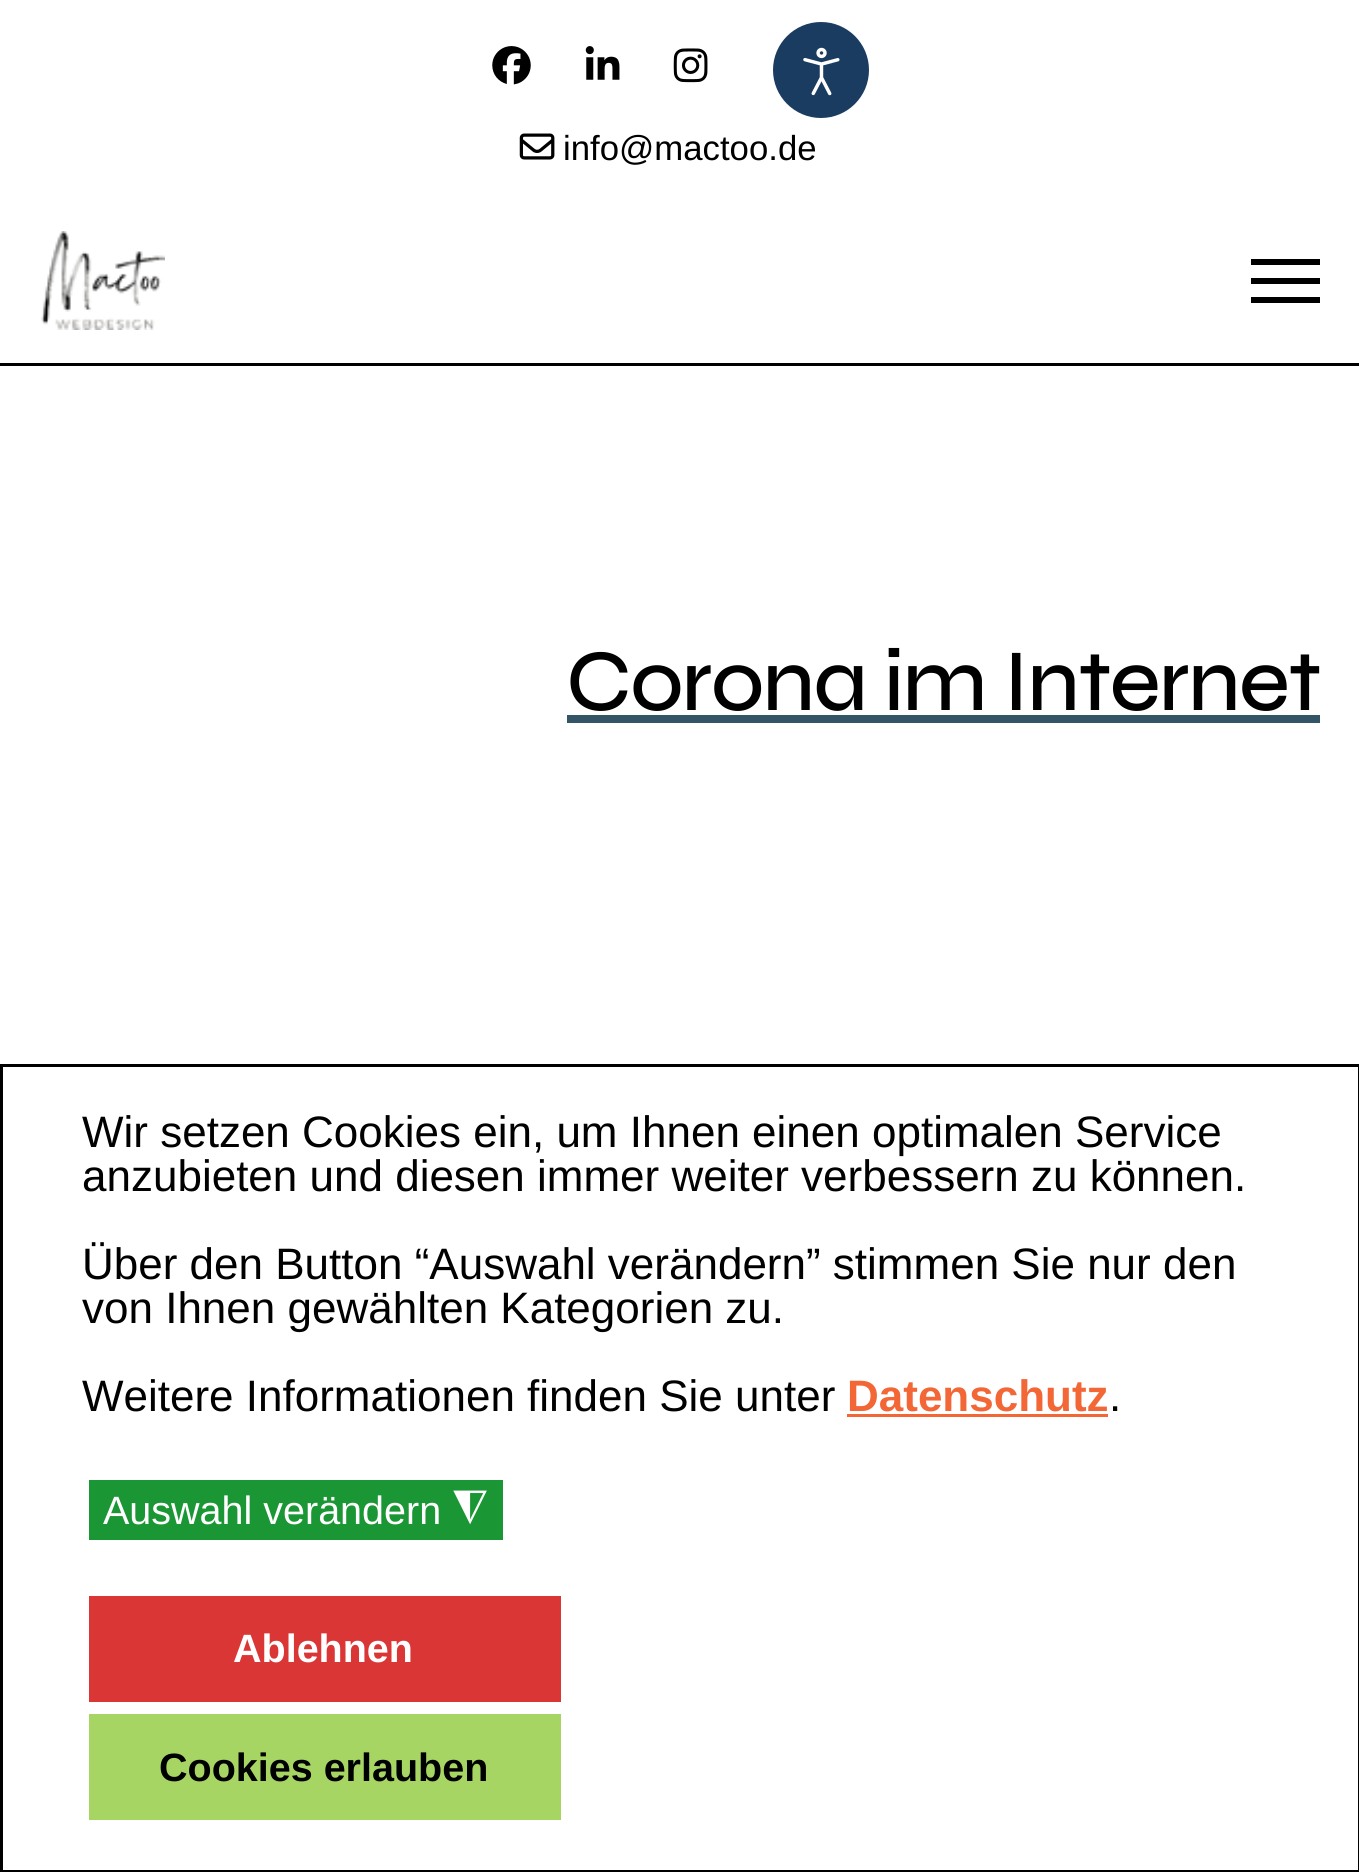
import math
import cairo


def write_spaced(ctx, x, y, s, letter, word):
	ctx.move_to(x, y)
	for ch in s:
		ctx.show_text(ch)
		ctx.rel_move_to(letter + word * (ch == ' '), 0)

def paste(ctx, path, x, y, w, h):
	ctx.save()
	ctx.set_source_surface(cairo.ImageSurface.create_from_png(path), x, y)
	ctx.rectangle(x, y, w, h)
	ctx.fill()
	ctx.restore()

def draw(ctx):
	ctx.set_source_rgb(1, 1, 1)
	ctx.paint()
	paste(ctx, 'media/1.png', 492, 46, 39, 39)
	paste(ctx, 'media/2.png', 585, 46, 35, 34)
	paste(ctx, 'media/3.png', 673, 48, 35, 35)
	ctx.set_source_rgb(0.106, 0.235, 0.38)
	ctx.arc(821, 70, 48, 0, 2 * math.pi)
	ctx.fill()
	paste(ctx, 'media/4.png', 803, 47, 37, 49)
	paste(ctx, 'media/5.png', 519, 133, 36, 27)
	ctx.select_font_face('Liberation Sans')
	ctx.set_font_size(34.75)
	ctx.set_source_rgb(0, 0, 0)
	ctx.move_to(563, 160)
	ctx.show_text('info@mactoo.de')
	ctx.rectangle(0, 363, 1359, 3)
	ctx.fill()
	paste(ctx, 'media/6.png', 41, 231, 124, 99)
	ctx.rectangle(1251, 259, 69, 6)
	ctx.rectangle(1251, 278, 69, 6)
	ctx.rectangle(1251, 297, 69, 6)
	ctx.fill()
	ctx.select_font_face('Syne Medium')
	ctx.set_font_size(88)
	write_spaced(ctx, 566, 710, 'Corona im Internet', -1.75, 0)
	ctx.set_source_rgb(0.2, 0.333, 0.4)
	ctx.rectangle(567, 715, 753, 8)
	ctx.fill()
	ctx.rectangle(1.5, 1065.5, 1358, 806)
	ctx.set_source_rgb(0, 0, 0)
	ctx.set_line_width(3)
	ctx.stroke()
	ctx.select_font_face('Liberation Sans')
	ctx.set_font_size(44)
	for x, y, s in [
		(82, 1147, 'Wir setzen Cookies ein, um Ihnen einen optimalen Service'),
		(82, 1191, 'anzubieten und diesen immer weiter verbessern zu können.'),
		(82, 1279, 'Über den Button “Auswahl verändern” stimmen Sie nur den'),
		(82, 1323, 'von Ihnen gewählten Kategorien zu.'),
		(82, 1411, 'Weitere Informationen finden Sie unter'),
	]:
		ctx.move_to(x, y)
		ctx.show_text(s)
	ctx.select_font_face('Liberation Sans', cairo.FONT_SLANT_NORMAL, cairo.FONT_WEIGHT_BOLD)
	ctx.set_source_rgb(0.953, 0.404, 0.216)
	ctx.move_to(847, 1411)
	ctx.show_text('Datenschutz')
	ctx.select_font_face('Liberation Sans')
	ctx.set_source_rgb(0, 0, 0)
	ctx.move_to(1109, 1411)
	ctx.show_text('.')
	ctx.set_source_rgb(0.953, 0.404, 0.216)
	ctx.rectangle(847, 1414, 261, 3)
	ctx.fill()
	ctx.set_source_rgb(0.106, 0.588, 0.204)
	ctx.rectangle(89, 1480, 414, 60)
	ctx.fill()
	ctx.set_font_size(39.5)
	ctx.set_source_rgb(1, 1, 1)
	ctx.move_to(103, 1524)
	ctx.show_text('Auswahl verändern')
	ctx.select_font_face('DejaVu Sans')
	ctx.set_font_size(44)
	ctx.save()
	ctx.translate(487, 1496)
	ctx.rotate(180 * math.pi / 180)
	ctx.move_to(0, 0)
	ctx.show_text('◮')
	ctx.restore()
	ctx.set_source_rgb(0.859, 0.212, 0.212)
	ctx.rectangle(89, 1596, 472, 106)
	ctx.fill()
	ctx.select_font_face('Liberation Sans', cairo.FONT_SLANT_NORMAL, cairo.FONT_WEIGHT_BOLD)
	ctx.set_font_size(39.5)
	ctx.set_source_rgb(1, 1, 1)
	ctx.move_to(233, 1662)
	ctx.show_text('Ablehnen')
	ctx.set_source_rgb(0.655, 0.835, 0.392)
	ctx.rectangle(89, 1714, 472, 106)
	ctx.fill()
	ctx.set_source_rgb(0, 0, 0)
	ctx.move_to(159, 1781)
	ctx.show_text('Cookies erlauben')


surface = cairo.ImageSurface(cairo.FORMAT_RGB24, 1359, 1872)
ctx = cairo.Context(surface)
options = cairo.FontOptions()
options.set_hint_metrics(cairo.HINT_METRICS_OFF)
options.set_hint_style(cairo.HINT_STYLE_NONE)
ctx.set_font_options(options)
ctx.set_miter_limit(4)
draw(ctx)
surface.write_to_png('image.png')
